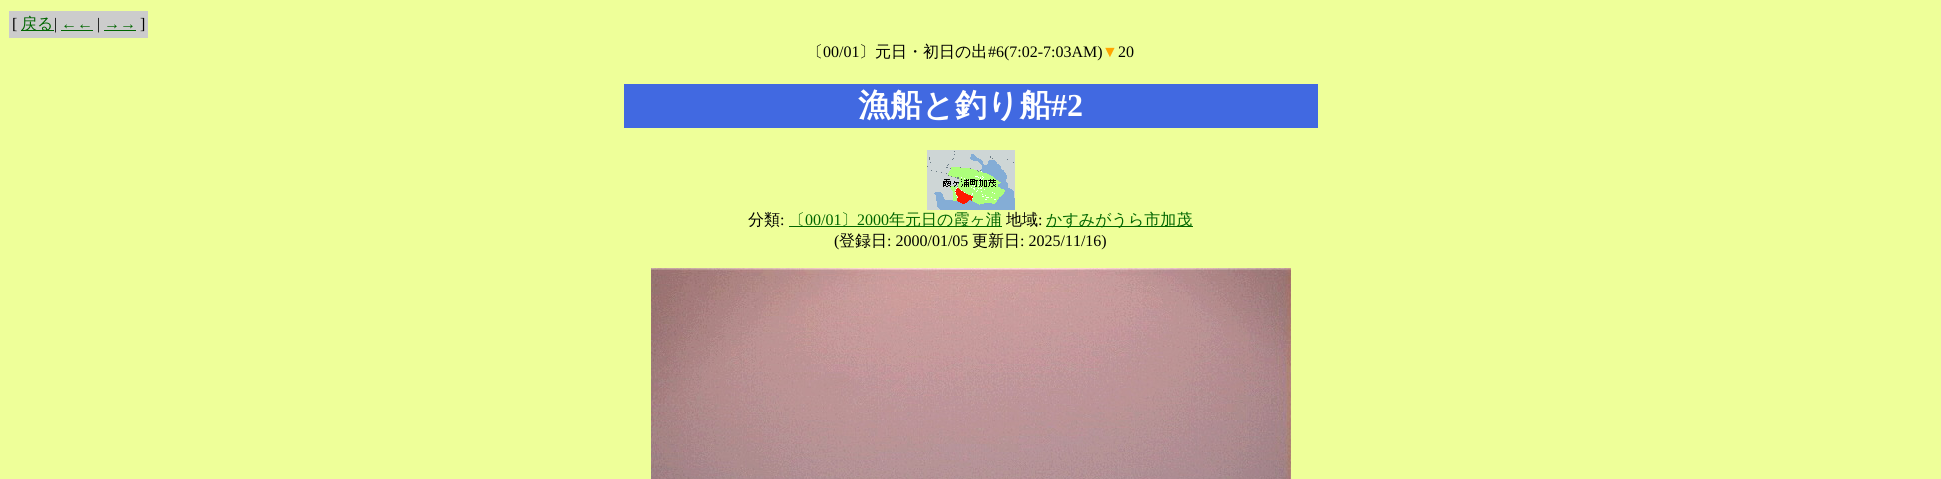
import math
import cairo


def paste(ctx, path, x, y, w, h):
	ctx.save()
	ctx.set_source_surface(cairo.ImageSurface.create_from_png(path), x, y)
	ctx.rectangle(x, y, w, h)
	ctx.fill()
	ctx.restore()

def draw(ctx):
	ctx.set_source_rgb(0.933, 1, 0.6)
	ctx.paint()
	ctx.set_source_rgb(0.8, 0.8, 0.8)
	ctx.rectangle(9, 11, 139, 27)
	ctx.fill()
	ctx.select_font_face('Liberation Serif')
	ctx.set_font_size(16)
	ctx.set_source_rgb(0, 0, 0)
	ctx.move_to(12, 29)
	ctx.show_text('[')
	ctx.set_source_rgb(0, 0.4, 0)
	ctx.rectangle(21, 30, 33, 1)
	ctx.fill()
	ctx.select_font_face('WenQuanYi Zen Hei Medium')
	ctx.move_to(21, 29)
	ctx.show_text('戻る')
	ctx.select_font_face('Liberation Serif')
	ctx.set_source_rgb(0, 0, 0)
	ctx.move_to(54, 29)
	ctx.show_text('|')
	ctx.set_source_rgb(0, 0.4, 0)
	ctx.move_to(61, 29)
	ctx.show_text('←←')
	ctx.rectangle(61, 30, 32, 1)
	ctx.fill()
	ctx.set_source_rgb(0, 0, 0)
	ctx.move_to(97, 29)
	ctx.show_text('|')
	ctx.set_source_rgb(0, 0.4, 0)
	ctx.move_to(104, 29)
	ctx.show_text('→→')
	ctx.rectangle(104, 30, 32, 1)
	ctx.fill()
	ctx.set_source_rgb(0, 0, 0)
	ctx.move_to(140, 29)
	ctx.show_text(']')
	ctx.select_font_face('WenQuanYi Zen Hei Medium')
	ctx.move_to(807, 57)
	ctx.show_text('〔')
	ctx.select_font_face('Liberation Serif')
	ctx.move_to(823, 57)
	ctx.show_text('00/01')
	ctx.select_font_face('WenQuanYi Zen Hei Medium')
	ctx.move_to(859, 57)
	ctx.show_text('〕元日・初日の出')
	ctx.select_font_face('Liberation Serif')
	ctx.move_to(988, 57)
	ctx.show_text('#6(7:02-7:03AM)')
	ctx.set_source_rgb(1, 0.647, 0)
	ctx.move_to(1102, 57)
	ctx.show_text('▼')
	ctx.set_source_rgb(0, 0, 0)
	ctx.move_to(1118, 57)
	ctx.show_text('20')
	ctx.set_source_rgb(0.255, 0.412, 0.882)
	ctx.rectangle(624, 84, 694, 44)
	ctx.fill()
	ctx.select_font_face('WenQuanYi Zen Hei', cairo.FONT_SLANT_NORMAL, cairo.FONT_WEIGHT_BOLD)
	ctx.set_font_size(32)
	ctx.set_source_rgb(1, 1, 1)
	ctx.move_to(858, 116)
	ctx.show_text('漁船と釣り船')
	ctx.select_font_face('Liberation Serif', cairo.FONT_SLANT_NORMAL, cairo.FONT_WEIGHT_BOLD)
	ctx.move_to(1051, 116)
	ctx.show_text('#2')
	paste(ctx, 'media/1.png', 927, 150, 88, 60)
	ctx.select_font_face('WenQuanYi Zen Hei Medium')
	ctx.set_font_size(16)
	ctx.set_source_rgb(0, 0, 0)
	ctx.move_to(748, 225)
	ctx.show_text('分類')
	ctx.select_font_face('Liberation Serif')
	ctx.move_to(780, 225)
	ctx.show_text(':')
	ctx.set_source_rgb(0, 0.4, 0)
	ctx.rectangle(789, 226, 213, 1)
	ctx.fill()
	ctx.select_font_face('WenQuanYi Zen Hei Medium')
	ctx.move_to(789, 225)
	ctx.show_text('〔')
	ctx.select_font_face('Liberation Serif')
	ctx.move_to(805, 225)
	ctx.show_text('00/01')
	ctx.select_font_face('WenQuanYi Zen Hei Medium')
	ctx.move_to(841, 225)
	ctx.show_text('〕')
	ctx.select_font_face('Liberation Serif')
	ctx.move_to(857, 225)
	ctx.show_text('2000')
	ctx.select_font_face('WenQuanYi Zen Hei Medium')
	ctx.move_to(889, 225)
	ctx.show_text('年元日の霞ヶ浦')
	ctx.set_source_rgb(0, 0, 0)
	ctx.move_to(1006, 225)
	ctx.show_text('地域')
	ctx.select_font_face('Liberation Serif')
	ctx.move_to(1038, 225)
	ctx.show_text(':')
	ctx.set_source_rgb(0, 0.4, 0)
	ctx.rectangle(1046, 226, 147, 1)
	ctx.fill()
	ctx.select_font_face('WenQuanYi Zen Hei Medium')
	ctx.move_to(1046, 225)
	ctx.show_text('かすみがうら市加茂')
	ctx.select_font_face('Liberation Serif')
	ctx.set_source_rgb(0, 0, 0)
	ctx.move_to(834, 246)
	ctx.show_text('(')
	ctx.select_font_face('WenQuanYi Zen Hei Medium')
	ctx.move_to(839, 246)
	ctx.show_text('登録日')
	ctx.select_font_face('Liberation Serif')
	ctx.move_to(887, 246)
	ctx.show_text(': 2000/01/05')
	ctx.select_font_face('WenQuanYi Zen Hei Medium')
	ctx.move_to(972, 246)
	ctx.show_text('更新日')
	ctx.select_font_face('Liberation Serif')
	ctx.move_to(1020, 246)
	ctx.show_text(': 2025/11/16)')
	paste(ctx, 'media/2.png', 651, 268, 640, 211)


surface = cairo.ImageSurface(cairo.FORMAT_RGB24, 1941, 479)
ctx = cairo.Context(surface)
options = cairo.FontOptions()
options.set_hint_metrics(cairo.HINT_METRICS_OFF)
options.set_hint_style(cairo.HINT_STYLE_NONE)
ctx.set_font_options(options)
ctx.set_miter_limit(4)
draw(ctx)
surface.write_to_png('image.png')
